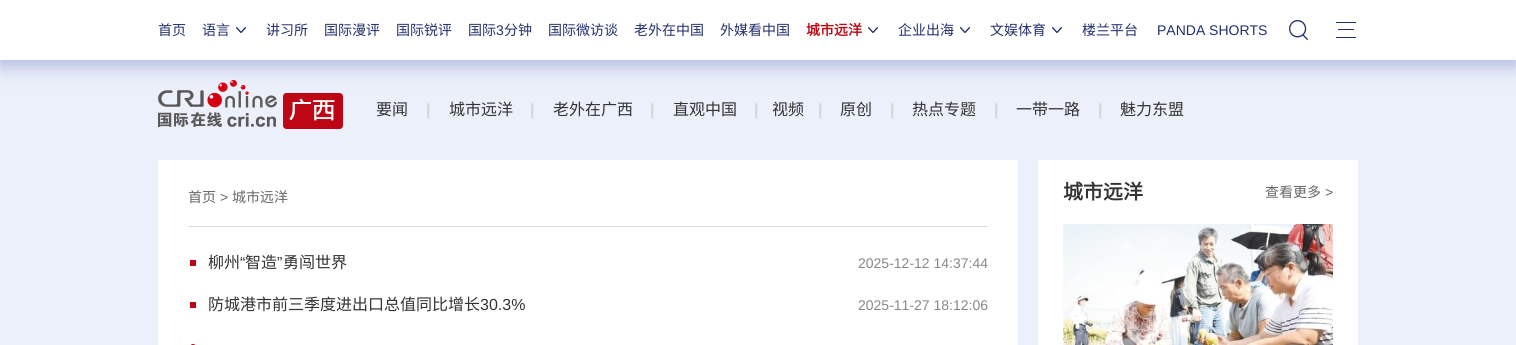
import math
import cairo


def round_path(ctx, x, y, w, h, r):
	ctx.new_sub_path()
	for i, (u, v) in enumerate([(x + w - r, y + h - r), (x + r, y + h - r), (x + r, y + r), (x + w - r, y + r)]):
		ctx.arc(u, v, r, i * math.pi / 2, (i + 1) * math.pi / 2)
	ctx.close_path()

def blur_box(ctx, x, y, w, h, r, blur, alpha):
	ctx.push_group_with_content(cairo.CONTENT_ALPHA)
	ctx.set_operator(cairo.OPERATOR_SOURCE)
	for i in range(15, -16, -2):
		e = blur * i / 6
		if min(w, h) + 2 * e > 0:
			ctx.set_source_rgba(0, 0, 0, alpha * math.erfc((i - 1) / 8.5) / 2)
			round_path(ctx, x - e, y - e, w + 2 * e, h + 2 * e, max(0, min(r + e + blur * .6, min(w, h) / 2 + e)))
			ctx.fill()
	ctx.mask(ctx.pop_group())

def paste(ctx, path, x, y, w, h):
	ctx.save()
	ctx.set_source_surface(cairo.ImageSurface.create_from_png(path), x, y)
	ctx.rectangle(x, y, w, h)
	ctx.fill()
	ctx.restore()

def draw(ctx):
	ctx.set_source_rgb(0.925, 0.941, 0.984)
	ctx.paint()
	paste(ctx, 'media/4.png', 158, 80, 185, 49)
	ctx.set_source_rgb(0.263, 0.337, 0.667)
	blur_box(ctx, 0, 5, 1516, 60, 0, 10, 0.4)
	ctx.set_source_rgb(1, 1, 1)
	ctx.rectangle(0, 0, 1516, 60)
	ctx.fill()
	ctx.select_font_face('Noto Sans CJK SC')
	ctx.set_font_size(14)
	ctx.set_source_rgb(0.133, 0.188, 0.427)
	ctx.move_to(158, 35)
	ctx.show_text('首页')
	ctx.move_to(202, 35)
	ctx.show_text('语言')
	paste(ctx, 'media/1.png', 236, 27, 10, 6)
	for x, y, s in [
		(266, 35, '讲习所'),
		(324, 35, '国际漫评'),
		(396, 35, '国际锐评'),
		(468, 35, '国际'),
	]:
		ctx.move_to(x, y)
		ctx.show_text(s)
	ctx.select_font_face('Liberation Sans')
	ctx.move_to(496, 35)
	ctx.show_text('3')
	ctx.select_font_face('Noto Sans CJK SC')
	for x, y, s in [
		(504, 35, '分钟'),
		(548, 35, '国际微访谈'),
		(634, 35, '老外在中国'),
		(720, 35, '外媒看中国'),
	]:
		ctx.move_to(x, y)
		ctx.show_text(s)
	ctx.select_font_face('Noto Sans CJK SC', cairo.FONT_SLANT_NORMAL, cairo.FONT_WEIGHT_BOLD)
	ctx.set_source_rgb(0.749, 0.024, 0.078)
	ctx.move_to(806, 35)
	ctx.show_text('城市远洋')
	paste(ctx, 'media/1.png', 868, 27, 10, 6)
	ctx.select_font_face('Noto Sans CJK SC')
	ctx.set_source_rgb(0.133, 0.188, 0.427)
	ctx.move_to(898, 35)
	ctx.show_text('企业出海')
	paste(ctx, 'media/1.png', 960, 27, 10, 6)
	ctx.move_to(990, 35)
	ctx.show_text('文娱体育')
	paste(ctx, 'media/1.png', 1052, 27, 10, 6)
	ctx.move_to(1082, 35)
	ctx.show_text('楼兰平台')
	ctx.select_font_face('Liberation Sans')
	ctx.move_to(1157, 35)
	ctx.show_text('PANDA SHORTS')
	paste(ctx, 'media/2.png', 1289, 20, 19, 20)
	paste(ctx, 'media/3.png', 1336, 22, 20, 16)
	ctx.select_font_face('Noto Sans CJK SC')
	ctx.set_font_size(16)
	ctx.set_source_rgb(0.2, 0.2, 0.2)
	ctx.move_to(376, 115)
	ctx.show_text('要闻')
	ctx.select_font_face('Liberation Sans', cairo.FONT_SLANT_NORMAL, cairo.FONT_WEIGHT_BOLD)
	ctx.set_source_rgb(0.835, 0.835, 0.835)
	ctx.move_to(426, 115)
	ctx.show_text('|')
	ctx.select_font_face('Noto Sans CJK SC')
	ctx.set_source_rgb(0.2, 0.2, 0.2)
	ctx.move_to(449, 115)
	ctx.show_text('城市远洋')
	ctx.select_font_face('Liberation Sans', cairo.FONT_SLANT_NORMAL, cairo.FONT_WEIGHT_BOLD)
	ctx.set_source_rgb(0.835, 0.835, 0.835)
	ctx.move_to(530, 115)
	ctx.show_text('|')
	ctx.select_font_face('Noto Sans CJK SC')
	ctx.set_source_rgb(0.2, 0.2, 0.2)
	ctx.move_to(553, 115)
	ctx.show_text('老外在广西')
	ctx.select_font_face('Liberation Sans', cairo.FONT_SLANT_NORMAL, cairo.FONT_WEIGHT_BOLD)
	ctx.set_source_rgb(0.835, 0.835, 0.835)
	ctx.move_to(650, 115)
	ctx.show_text('|')
	ctx.select_font_face('Noto Sans CJK SC')
	ctx.set_source_rgb(0.2, 0.2, 0.2)
	ctx.move_to(673, 115)
	ctx.show_text('直观中国')
	ctx.select_font_face('Liberation Sans', cairo.FONT_SLANT_NORMAL, cairo.FONT_WEIGHT_BOLD)
	ctx.set_source_rgb(0.835, 0.835, 0.835)
	ctx.move_to(754, 115)
	ctx.show_text('|')
	ctx.select_font_face('Noto Sans CJK SC')
	ctx.set_source_rgb(0.2, 0.2, 0.2)
	ctx.move_to(772, 115)
	ctx.show_text('视频')
	ctx.select_font_face('Liberation Sans', cairo.FONT_SLANT_NORMAL, cairo.FONT_WEIGHT_BOLD)
	ctx.set_source_rgb(0.835, 0.835, 0.835)
	ctx.move_to(818, 115)
	ctx.show_text('|')
	ctx.select_font_face('Noto Sans CJK SC')
	ctx.set_source_rgb(0.2, 0.2, 0.2)
	ctx.move_to(840, 115)
	ctx.show_text('原创')
	ctx.select_font_face('Liberation Sans', cairo.FONT_SLANT_NORMAL, cairo.FONT_WEIGHT_BOLD)
	ctx.set_source_rgb(0.835, 0.835, 0.835)
	ctx.move_to(890, 115)
	ctx.show_text('|')
	ctx.select_font_face('Noto Sans CJK SC')
	ctx.set_source_rgb(0.2, 0.2, 0.2)
	ctx.move_to(912, 115)
	ctx.show_text('热点专题')
	ctx.select_font_face('Liberation Sans', cairo.FONT_SLANT_NORMAL, cairo.FONT_WEIGHT_BOLD)
	ctx.set_source_rgb(0.835, 0.835, 0.835)
	ctx.move_to(994, 115)
	ctx.show_text('|')
	ctx.select_font_face('Noto Sans CJK SC')
	ctx.set_source_rgb(0.2, 0.2, 0.2)
	ctx.move_to(1016, 115)
	ctx.show_text('一带一路')
	ctx.select_font_face('Liberation Sans', cairo.FONT_SLANT_NORMAL, cairo.FONT_WEIGHT_BOLD)
	ctx.set_source_rgb(0.835, 0.835, 0.835)
	ctx.move_to(1098, 115)
	ctx.show_text('|')
	ctx.select_font_face('Noto Sans CJK SC')
	ctx.set_source_rgb(0.2, 0.2, 0.2)
	ctx.move_to(1120, 115)
	ctx.show_text('魅力东盟')
	ctx.set_source_rgb(1, 1, 1)
	ctx.rectangle(158, 160, 860, 185)
	ctx.fill()
	ctx.set_source_rgb(0.859, 0.859, 0.859)
	ctx.rectangle(188, 226, 800, 1)
	ctx.fill()
	ctx.set_font_size(14)
	ctx.set_source_rgb(0.4, 0.4, 0.4)
	ctx.move_to(188, 202)
	ctx.show_text('首页')
	ctx.select_font_face('Liberation Sans')
	ctx.move_to(220, 202)
	ctx.show_text('>')
	ctx.select_font_face('Noto Sans CJK SC')
	ctx.move_to(232, 202)
	ctx.show_text('城市远洋')
	ctx.set_font_size(16)
	ctx.set_source_rgb(0.2, 0.2, 0.2)
	ctx.move_to(208, 268)
	ctx.show_text('柳州')
	ctx.set_source_rgb(0.745, 0.024, 0.078)
	ctx.rectangle(190, 260, 6, 6)
	ctx.fill()
	ctx.select_font_face('Liberation Sans')
	ctx.set_source_rgb(0.2, 0.2, 0.2)
	ctx.move_to(240, 268)
	ctx.show_text('“')
	ctx.select_font_face('Noto Sans CJK SC')
	ctx.move_to(245, 268)
	ctx.show_text('智造')
	ctx.select_font_face('Liberation Sans')
	ctx.move_to(277, 268)
	ctx.show_text('”')
	ctx.select_font_face('Noto Sans CJK SC')
	ctx.move_to(283, 268)
	ctx.show_text('勇闯世界')
	ctx.select_font_face('Liberation Sans')
	ctx.set_font_size(14)
	ctx.set_source_rgb(0.533, 0.533, 0.533)
	ctx.move_to(858, 268)
	ctx.show_text('2025-12-12 14:37:44')
	ctx.select_font_face('Noto Sans CJK SC')
	ctx.set_font_size(16)
	ctx.set_source_rgb(0.2, 0.2, 0.2)
	ctx.move_to(208, 310)
	ctx.show_text('防城港市前三季度进出口总值同比增长')
	ctx.set_source_rgb(0.745, 0.024, 0.078)
	ctx.rectangle(190, 302, 6, 6)
	ctx.fill()
	ctx.select_font_face('Liberation Sans')
	ctx.set_source_rgb(0.2, 0.2, 0.2)
	ctx.move_to(480, 310)
	ctx.show_text('30.3%')
	ctx.set_font_size(14)
	ctx.set_source_rgb(0.533, 0.533, 0.533)
	ctx.move_to(858, 310)
	ctx.show_text('2025-11-27 18:12:06')
	paste(ctx, 'media/5.png', 190, 344, 6, 1)
	ctx.set_source_rgb(1, 1, 1)
	ctx.rectangle(1038, 160, 320, 185)
	ctx.fill()
	ctx.select_font_face('Noto Sans CJK SC', cairo.FONT_SLANT_NORMAL, cairo.FONT_WEIGHT_BOLD)
	ctx.set_font_size(20)
	ctx.set_source_rgb(0.2, 0.2, 0.2)
	ctx.move_to(1063, 199)
	ctx.show_text('城市远洋')
	ctx.select_font_face('Noto Sans CJK SC')
	ctx.set_font_size(14)
	ctx.set_source_rgb(0.4, 0.4, 0.4)
	ctx.move_to(1265, 197)
	ctx.show_text('查看更多')
	ctx.select_font_face('Liberation Sans')
	ctx.move_to(1325, 197)
	ctx.show_text('>')
	paste(ctx, 'media/6.png', 1063, 224, 270, 121)


surface = cairo.ImageSurface(cairo.FORMAT_RGB24, 1516, 345)
ctx = cairo.Context(surface)
options = cairo.FontOptions()
options.set_hint_metrics(cairo.HINT_METRICS_OFF)
options.set_hint_style(cairo.HINT_STYLE_NONE)
ctx.set_font_options(options)
ctx.set_miter_limit(4)
draw(ctx)
surface.write_to_png('image.png')
